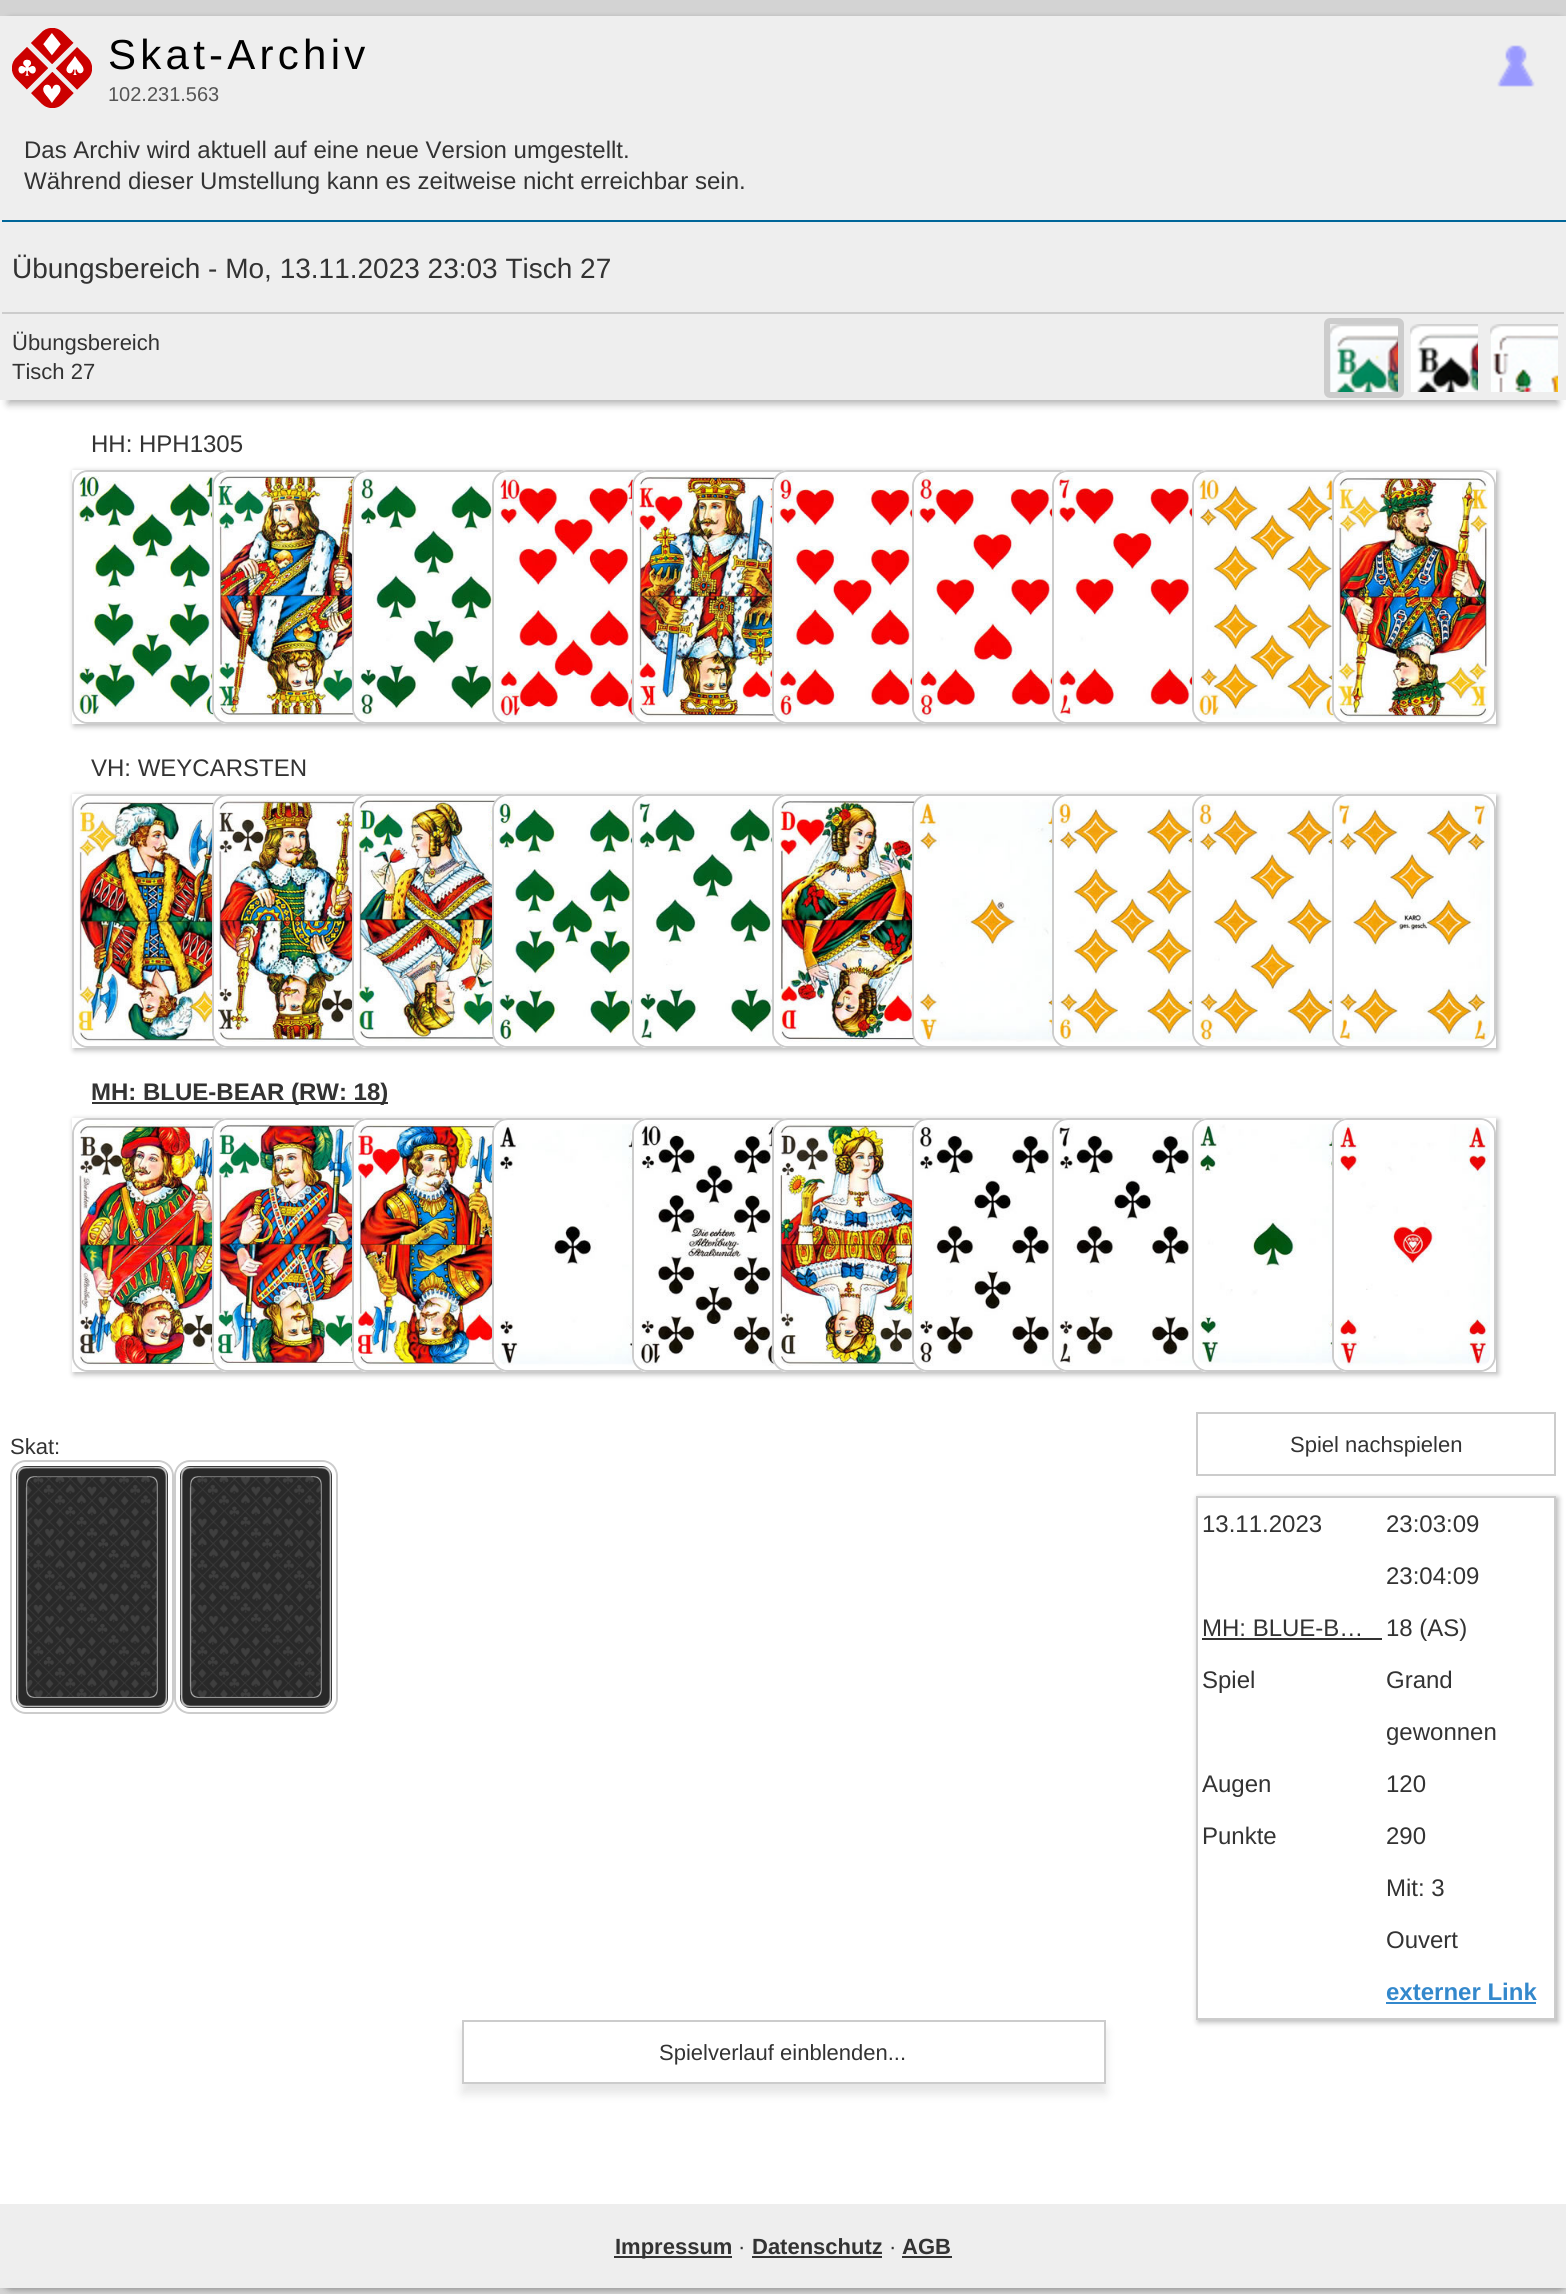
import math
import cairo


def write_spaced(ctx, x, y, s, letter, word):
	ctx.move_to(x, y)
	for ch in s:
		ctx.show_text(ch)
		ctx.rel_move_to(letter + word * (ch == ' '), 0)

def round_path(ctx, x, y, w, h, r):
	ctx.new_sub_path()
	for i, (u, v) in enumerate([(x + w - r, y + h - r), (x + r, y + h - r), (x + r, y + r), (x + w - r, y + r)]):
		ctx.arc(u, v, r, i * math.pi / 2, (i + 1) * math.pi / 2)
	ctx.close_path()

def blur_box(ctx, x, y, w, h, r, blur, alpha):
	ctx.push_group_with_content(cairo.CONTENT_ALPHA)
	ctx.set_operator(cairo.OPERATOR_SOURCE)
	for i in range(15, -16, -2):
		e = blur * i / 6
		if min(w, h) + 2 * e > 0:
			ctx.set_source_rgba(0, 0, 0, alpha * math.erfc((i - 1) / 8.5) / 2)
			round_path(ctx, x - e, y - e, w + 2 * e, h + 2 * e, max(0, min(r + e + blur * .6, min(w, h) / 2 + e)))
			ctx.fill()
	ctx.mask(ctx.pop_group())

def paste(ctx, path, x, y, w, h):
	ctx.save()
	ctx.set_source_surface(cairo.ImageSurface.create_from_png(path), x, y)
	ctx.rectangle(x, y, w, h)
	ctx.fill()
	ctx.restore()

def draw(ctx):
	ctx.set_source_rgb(0.827, 0.827, 0.827)
	ctx.paint()
	ctx.set_source_rgb(0, 0, 0)
	blur_box(ctx, 2, 18, 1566, 2272, 10, 3, 0.3)
	ctx.set_source_rgb(1, 1, 1)
	ctx.rectangle(0, 400, 1566, 1804)
	ctx.fill()
	ctx.set_source_rgb(0.933, 0.933, 0.933)
	ctx.rectangle(2, 16, 1564, 204)
	ctx.fill()
	ctx.set_source_rgb(0, 0.4, 0.6)
	ctx.rectangle(0, 220, 1566, 2)
	ctx.fill()
	ctx.set_source_rgb(0.933, 0.933, 0.933)
	ctx.rectangle(0, 16, 2, 206)
	ctx.fill()
	paste(ctx, 'media/1.png', 12, 28, 80, 80)
	ctx.select_font_face('Liberation Sans')
	ctx.set_font_size(42)
	ctx.set_source_rgb(0, 0, 0)
	write_spaced(ctx, 108, 69, 'Skat-Archiv', 4.25, 0)
	ctx.set_font_size(20)
	ctx.set_source_rgb(0.333, 0.333, 0.333)
	ctx.move_to(108, 101)
	ctx.show_text('102.231.563')
	paste(ctx, 'media/2.png', 1497, 45, 38, 42)
	ctx.set_font_size(24)
	ctx.set_source_rgb(0.2, 0.2, 0.2)
	ctx.move_to(24, 158)
	ctx.show_text('Das Archiv wird aktuell auf eine neue Version umgestellt.')
	ctx.move_to(24, 189)
	ctx.show_text('Während dieser Umstellung kann es zeitweise nicht erreichbar sein.')
	ctx.rectangle(1, 223, 1564, 92)
	ctx.set_source_rgb(0.933, 0.933, 0.933)
	ctx.stroke()
	ctx.rectangle(2, 224, 1562, 88)
	ctx.fill()
	ctx.set_source_rgb(0.8, 0.8, 0.8)
	ctx.rectangle(2, 312, 1562, 2)
	ctx.fill()
	ctx.set_font_size(28)
	ctx.set_source_rgb(0.2, 0.2, 0.2)
	ctx.move_to(12, 278)
	ctx.show_text('Übungsbereich - Mo, 13.11.2023 23:03 Tisch 27')
	ctx.set_source_rgb(0, 0, 0)
	blur_box(ctx, 8, 336, 1550, 68, 0, 4, 0.3)
	ctx.set_source_rgb(0.933, 0.933, 0.933)
	ctx.rectangle(0, 316, 1566, 84)
	ctx.fill()
	ctx.set_font_size(22)
	ctx.set_source_rgb(0.2, 0.2, 0.2)
	ctx.move_to(12, 350)
	ctx.show_text('Übungsbereich')
	ctx.move_to(12, 379)
	ctx.show_text('Tisch 27')
	paste(ctx, 'media/3.png', 1330, 324, 68, 68)
	round_path(ctx, 1327, 321, 74, 74, 3)
	ctx.set_source_rgb(0.8, 0.8, 0.8)
	ctx.set_line_width(6)
	ctx.stroke()
	paste(ctx, 'media/4.png', 1410, 324, 68, 68)
	paste(ctx, 'media/5.png', 1490, 324, 68, 68)
	ctx.set_font_size(24)
	ctx.set_source_rgb(0.2, 0.2, 0.2)
	ctx.move_to(91, 452)
	ctx.show_text('HH: HPH1305')
	ctx.save()
	ctx.set_fill_rule(cairo.FILL_RULE_EVEN_ODD)
	ctx.new_path()
	ctx.move_to(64, 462)
	ctx.line_to(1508, 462)
	ctx.line_to(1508, 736)
	ctx.line_to(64, 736)
	ctx.close_path()
	ctx.move_to(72, 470)
	ctx.line_to(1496, 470)
	ctx.line_to(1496, 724)
	ctx.line_to(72, 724)
	ctx.close_path()
	ctx.clip()
	ctx.set_source_rgb(0, 0, 0)
	blur_box(ctx, 74, 472, 1424, 254, 0, 3, 0.3)
	ctx.restore()
	paste(ctx, 'media/6.png', 74, 475, 142, 243)
	round_path(ctx, 73, 471, 162, 252, 15)
	ctx.set_source_rgb(0.8, 0.8, 0.8)
	ctx.set_line_width(2)
	ctx.stroke()
	round_path(ctx, 76, 474, 156, 246, 12)
	ctx.set_source_rgb(1, 1, 1)
	ctx.set_line_width(4)
	ctx.stroke()
	paste(ctx, 'media/7.png', 212, 470, 153, 254)
	round_path(ctx, 213, 471, 162, 252, 15)
	ctx.set_source_rgb(0.8, 0.8, 0.8)
	ctx.set_line_width(2)
	ctx.stroke()
	round_path(ctx, 216, 474, 156, 246, 12)
	ctx.set_source_rgb(1, 1, 1)
	ctx.set_line_width(4)
	ctx.stroke()
	paste(ctx, 'media/8.png', 352, 470, 154, 254)
	round_path(ctx, 353, 471, 162, 252, 15)
	ctx.set_source_rgb(0.8, 0.8, 0.8)
	ctx.set_line_width(2)
	ctx.stroke()
	round_path(ctx, 356, 474, 156, 246, 12)
	ctx.set_source_rgb(1, 1, 1)
	ctx.set_line_width(4)
	ctx.stroke()
	paste(ctx, 'media/9.png', 492, 470, 153, 254)
	round_path(ctx, 493, 471, 162, 252, 15)
	ctx.set_source_rgb(0.8, 0.8, 0.8)
	ctx.set_line_width(2)
	ctx.stroke()
	round_path(ctx, 496, 474, 156, 246, 12)
	ctx.set_source_rgb(1, 1, 1)
	ctx.set_line_width(4)
	ctx.stroke()
	paste(ctx, 'media/10.png', 632, 470, 153, 254)
	round_path(ctx, 633, 471, 162, 252, 15)
	ctx.set_source_rgb(0.8, 0.8, 0.8)
	ctx.set_line_width(2)
	ctx.stroke()
	round_path(ctx, 636, 474, 156, 246, 12)
	ctx.set_source_rgb(1, 1, 1)
	ctx.set_line_width(4)
	ctx.stroke()
	paste(ctx, 'media/11.png', 773, 470, 152, 254)
	round_path(ctx, 773, 471, 162, 252, 15)
	ctx.set_source_rgb(0.8, 0.8, 0.8)
	ctx.set_line_width(2)
	ctx.stroke()
	round_path(ctx, 776, 474, 156, 246, 12)
	ctx.set_source_rgb(1, 1, 1)
	ctx.set_line_width(4)
	ctx.stroke()
	paste(ctx, 'media/12.png', 914, 470, 151, 254)
	round_path(ctx, 913, 471, 162, 252, 15)
	ctx.set_source_rgb(0.8, 0.8, 0.8)
	ctx.set_line_width(2)
	ctx.stroke()
	round_path(ctx, 916, 474, 156, 246, 12)
	ctx.set_source_rgb(1, 1, 1)
	ctx.set_line_width(4)
	ctx.stroke()
	paste(ctx, 'media/13.png', 1053, 470, 155, 254)
	round_path(ctx, 1053, 471, 162, 252, 15)
	ctx.set_source_rgb(0.8, 0.8, 0.8)
	ctx.set_line_width(2)
	ctx.stroke()
	round_path(ctx, 1056, 474, 156, 246, 12)
	ctx.set_source_rgb(1, 1, 1)
	ctx.set_line_width(4)
	ctx.stroke()
	paste(ctx, 'media/14.png', 1194, 470, 151, 248)
	round_path(ctx, 1193, 471, 162, 252, 15)
	ctx.set_source_rgb(0.8, 0.8, 0.8)
	ctx.set_line_width(2)
	ctx.stroke()
	round_path(ctx, 1196, 474, 156, 246, 12)
	ctx.set_source_rgb(1, 1, 1)
	ctx.set_line_width(4)
	ctx.stroke()
	paste(ctx, 'media/15.png', 1332, 470, 164, 248)
	round_path(ctx, 1333, 471, 162, 252, 15)
	ctx.set_source_rgb(0.8, 0.8, 0.8)
	ctx.set_line_width(2)
	ctx.stroke()
	round_path(ctx, 1336, 474, 156, 246, 12)
	ctx.set_source_rgb(1, 1, 1)
	ctx.set_line_width(4)
	ctx.stroke()
	ctx.set_source_rgb(0.2, 0.2, 0.2)
	ctx.move_to(91, 776)
	ctx.show_text('VH: WEYCARSTEN')
	ctx.save()
	ctx.set_fill_rule(cairo.FILL_RULE_EVEN_ODD)
	ctx.new_path()
	ctx.move_to(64, 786)
	ctx.line_to(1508, 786)
	ctx.line_to(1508, 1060)
	ctx.line_to(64, 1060)
	ctx.close_path()
	ctx.move_to(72, 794)
	ctx.line_to(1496, 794)
	ctx.line_to(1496, 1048)
	ctx.line_to(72, 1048)
	ctx.close_path()
	ctx.clip()
	ctx.set_source_rgb(0, 0, 0)
	blur_box(ctx, 74, 796, 1424, 254, 0, 3, 0.3)
	ctx.restore()
	paste(ctx, 'media/16.png', 74, 800, 142, 242)
	round_path(ctx, 73, 795, 162, 252, 15)
	ctx.set_source_rgb(0.8, 0.8, 0.8)
	ctx.set_line_width(2)
	ctx.stroke()
	round_path(ctx, 76, 798, 156, 246, 12)
	ctx.set_source_rgb(1, 1, 1)
	ctx.set_line_width(4)
	ctx.stroke()
	paste(ctx, 'media/17.png', 212, 800, 153, 248)
	round_path(ctx, 213, 795, 162, 252, 15)
	ctx.set_source_rgb(0.8, 0.8, 0.8)
	ctx.set_line_width(2)
	ctx.stroke()
	round_path(ctx, 216, 798, 156, 246, 12)
	ctx.set_source_rgb(1, 1, 1)
	ctx.set_line_width(4)
	ctx.stroke()
	paste(ctx, 'media/18.png', 352, 794, 154, 254)
	round_path(ctx, 353, 795, 162, 252, 15)
	ctx.set_source_rgb(0.8, 0.8, 0.8)
	ctx.set_line_width(2)
	ctx.stroke()
	round_path(ctx, 356, 798, 156, 246, 12)
	ctx.set_source_rgb(1, 1, 1)
	ctx.set_line_width(4)
	ctx.stroke()
	paste(ctx, 'media/19.png', 492, 794, 153, 254)
	round_path(ctx, 493, 795, 162, 252, 15)
	ctx.set_source_rgb(0.8, 0.8, 0.8)
	ctx.set_line_width(2)
	ctx.stroke()
	round_path(ctx, 496, 798, 156, 246, 12)
	ctx.set_source_rgb(1, 1, 1)
	ctx.set_line_width(4)
	ctx.stroke()
	paste(ctx, 'media/20.png', 633, 794, 152, 254)
	round_path(ctx, 633, 795, 162, 252, 15)
	ctx.set_source_rgb(0.8, 0.8, 0.8)
	ctx.set_line_width(2)
	ctx.stroke()
	round_path(ctx, 636, 798, 156, 246, 12)
	ctx.set_source_rgb(1, 1, 1)
	ctx.set_line_width(4)
	ctx.stroke()
	round_path(ctx, 772, 794, 164, 254, 16)
	ctx.fill()
	paste(ctx, 'media/21.png', 780, 794, 148, 254)
	round_path(ctx, 773, 795, 162, 252, 15)
	ctx.set_source_rgb(0.8, 0.8, 0.8)
	ctx.set_line_width(2)
	ctx.stroke()
	round_path(ctx, 776, 798, 156, 246, 12)
	ctx.set_source_rgb(1, 1, 1)
	ctx.set_line_width(4)
	ctx.stroke()
	paste(ctx, 'media/22.png', 914, 794, 151, 248)
	round_path(ctx, 913, 795, 162, 252, 15)
	ctx.set_source_rgb(0.8, 0.8, 0.8)
	ctx.set_line_width(2)
	ctx.stroke()
	round_path(ctx, 916, 798, 156, 246, 12)
	ctx.set_source_rgb(1, 1, 1)
	ctx.set_line_width(4)
	ctx.stroke()
	paste(ctx, 'media/23.png', 1052, 794, 153, 248)
	round_path(ctx, 1053, 795, 162, 252, 15)
	ctx.set_source_rgb(0.8, 0.8, 0.8)
	ctx.set_line_width(2)
	ctx.stroke()
	round_path(ctx, 1056, 798, 156, 246, 12)
	ctx.set_source_rgb(1, 1, 1)
	ctx.set_line_width(4)
	ctx.stroke()
	paste(ctx, 'media/24.png', 1192, 794, 153, 248)
	round_path(ctx, 1193, 795, 162, 252, 15)
	ctx.set_source_rgb(0.8, 0.8, 0.8)
	ctx.set_line_width(2)
	ctx.stroke()
	round_path(ctx, 1196, 798, 156, 246, 12)
	ctx.set_source_rgb(1, 1, 1)
	ctx.set_line_width(4)
	ctx.stroke()
	paste(ctx, 'media/25.png', 1332, 794, 162, 248)
	round_path(ctx, 1333, 795, 162, 252, 15)
	ctx.set_source_rgb(0.8, 0.8, 0.8)
	ctx.set_line_width(2)
	ctx.stroke()
	round_path(ctx, 1336, 798, 156, 246, 12)
	ctx.set_source_rgb(1, 1, 1)
	ctx.set_line_width(4)
	ctx.stroke()
	ctx.set_source_rgb(0.2, 0.2, 0.2)
	ctx.rectangle(92, 1102, 296, 2)
	ctx.fill()
	ctx.select_font_face('Liberation Sans', cairo.FONT_SLANT_NORMAL, cairo.FONT_WEIGHT_BOLD)
	ctx.move_to(91, 1100)
	ctx.show_text('MH: BLUE-BEAR (RW: 18)')
	ctx.save()
	ctx.set_fill_rule(cairo.FILL_RULE_EVEN_ODD)
	ctx.new_path()
	ctx.move_to(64, 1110)
	ctx.line_to(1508, 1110)
	ctx.line_to(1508, 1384)
	ctx.line_to(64, 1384)
	ctx.close_path()
	ctx.move_to(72, 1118)
	ctx.line_to(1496, 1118)
	ctx.line_to(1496, 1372)
	ctx.line_to(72, 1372)
	ctx.close_path()
	ctx.clip()
	ctx.set_source_rgb(0, 0, 0)
	blur_box(ctx, 74, 1120, 1424, 254, 0, 3, 0.3)
	ctx.restore()
	paste(ctx, 'media/26.png', 73, 1124, 143, 243)
	round_path(ctx, 73, 1119, 162, 252, 15)
	ctx.set_source_rgb(0.8, 0.8, 0.8)
	ctx.set_line_width(2)
	ctx.stroke()
	round_path(ctx, 76, 1122, 156, 246, 12)
	ctx.set_source_rgb(1, 1, 1)
	ctx.set_line_width(4)
	ctx.stroke()
	paste(ctx, 'media/27.png', 212, 1118, 153, 254)
	round_path(ctx, 213, 1119, 162, 252, 15)
	ctx.set_source_rgb(0.8, 0.8, 0.8)
	ctx.set_line_width(2)
	ctx.stroke()
	round_path(ctx, 216, 1122, 156, 246, 12)
	ctx.set_source_rgb(1, 1, 1)
	ctx.set_line_width(4)
	ctx.stroke()
	paste(ctx, 'media/28.png', 352, 1118, 156, 254)
	round_path(ctx, 353, 1119, 162, 252, 15)
	ctx.set_source_rgb(0.8, 0.8, 0.8)
	ctx.set_line_width(2)
	ctx.stroke()
	round_path(ctx, 356, 1122, 156, 246, 12)
	ctx.set_source_rgb(1, 1, 1)
	ctx.set_line_width(4)
	ctx.stroke()
	paste(ctx, 'media/29.png', 494, 1124, 151, 248)
	round_path(ctx, 493, 1119, 162, 252, 15)
	ctx.set_source_rgb(0.8, 0.8, 0.8)
	ctx.set_line_width(2)
	ctx.stroke()
	round_path(ctx, 496, 1122, 156, 246, 12)
	ctx.set_source_rgb(1, 1, 1)
	ctx.set_line_width(4)
	ctx.stroke()
	round_path(ctx, 632, 1118, 164, 254, 16)
	ctx.fill()
	paste(ctx, 'media/30.png', 640, 1124, 145, 248)
	round_path(ctx, 633, 1119, 162, 252, 15)
	ctx.set_source_rgb(0.8, 0.8, 0.8)
	ctx.set_line_width(2)
	ctx.stroke()
	round_path(ctx, 636, 1122, 156, 246, 12)
	ctx.set_source_rgb(1, 1, 1)
	ctx.set_line_width(4)
	ctx.stroke()
	paste(ctx, 'media/31.png', 772, 1124, 153, 248)
	round_path(ctx, 773, 1119, 162, 252, 15)
	ctx.set_source_rgb(0.8, 0.8, 0.8)
	ctx.set_line_width(2)
	ctx.stroke()
	round_path(ctx, 776, 1122, 156, 246, 12)
	ctx.set_source_rgb(1, 1, 1)
	ctx.set_line_width(4)
	ctx.stroke()
	paste(ctx, 'media/32.png', 912, 1124, 153, 248)
	round_path(ctx, 913, 1119, 162, 252, 15)
	ctx.set_source_rgb(0.8, 0.8, 0.8)
	ctx.set_line_width(2)
	ctx.stroke()
	round_path(ctx, 916, 1122, 156, 246, 12)
	ctx.set_source_rgb(1, 1, 1)
	ctx.set_line_width(4)
	ctx.stroke()
	paste(ctx, 'media/33.png', 1052, 1124, 153, 248)
	round_path(ctx, 1053, 1119, 162, 252, 15)
	ctx.set_source_rgb(0.8, 0.8, 0.8)
	ctx.set_line_width(2)
	ctx.stroke()
	round_path(ctx, 1056, 1122, 156, 246, 12)
	ctx.set_source_rgb(1, 1, 1)
	ctx.set_line_width(4)
	ctx.stroke()
	paste(ctx, 'media/34.png', 1194, 1118, 151, 254)
	round_path(ctx, 1193, 1119, 162, 252, 15)
	ctx.set_source_rgb(0.8, 0.8, 0.8)
	ctx.set_line_width(2)
	ctx.stroke()
	round_path(ctx, 1196, 1122, 156, 246, 12)
	ctx.set_source_rgb(1, 1, 1)
	ctx.set_line_width(4)
	ctx.stroke()
	paste(ctx, 'media/35.png', 1334, 1118, 162, 254)
	round_path(ctx, 1333, 1119, 162, 252, 15)
	ctx.set_source_rgb(0.8, 0.8, 0.8)
	ctx.set_line_width(2)
	ctx.stroke()
	round_path(ctx, 1336, 1122, 156, 246, 12)
	ctx.set_source_rgb(1, 1, 1)
	ctx.set_line_width(4)
	ctx.stroke()
	ctx.select_font_face('Liberation Sans')
	ctx.set_font_size(22)
	ctx.set_source_rgb(0.2, 0.2, 0.2)
	ctx.move_to(10, 1454)
	ctx.show_text('Skat:')
	paste(ctx, 'media/36.png', 12, 1462, 160, 250)
	round_path(ctx, 11, 1461, 162, 252, 15)
	ctx.set_source_rgb(0.8, 0.8, 0.8)
	ctx.set_line_width(2)
	ctx.stroke()
	round_path(ctx, 14, 1464, 156, 246, 12)
	ctx.set_source_rgb(1, 1, 1)
	ctx.set_line_width(4)
	ctx.stroke()
	paste(ctx, 'media/37.png', 176, 1462, 160, 250)
	round_path(ctx, 175, 1461, 162, 252, 15)
	ctx.set_source_rgb(0.8, 0.8, 0.8)
	ctx.set_line_width(2)
	ctx.stroke()
	round_path(ctx, 178, 1464, 156, 246, 12)
	ctx.set_source_rgb(1, 1, 1)
	ctx.set_line_width(4)
	ctx.stroke()
	ctx.rectangle(1197, 1413, 358, 62)
	ctx.set_source_rgb(0.8, 0.8, 0.8)
	ctx.set_line_width(2)
	ctx.stroke()
	ctx.set_source_rgb(0.2, 0.2, 0.2)
	ctx.move_to(1290, 1452)
	ctx.show_text('Spiel nachspielen')
	ctx.save()
	ctx.set_fill_rule(cairo.FILL_RULE_EVEN_ODD)
	ctx.new_path()
	ctx.move_to(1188, 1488)
	ctx.line_to(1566, 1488)
	ctx.line_to(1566, 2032)
	ctx.line_to(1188, 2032)
	ctx.close_path()
	ctx.move_to(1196, 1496)
	ctx.line_to(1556, 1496)
	ctx.line_to(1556, 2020)
	ctx.line_to(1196, 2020)
	ctx.close_path()
	ctx.clip()
	ctx.set_source_rgb(0, 0, 0)
	blur_box(ctx, 1198, 1498, 360, 524, 0, 3, 0.3)
	ctx.restore()
	ctx.set_source_rgb(0.8, 0.8, 0.8)
	ctx.rectangle(1196, 1496, 360, 2)
	ctx.rectangle(1554, 1496, 2, 524)
	ctx.rectangle(1196, 2018, 360, 2)
	ctx.rectangle(1196, 1496, 2, 524)
	ctx.fill()
	ctx.set_font_size(24)
	ctx.set_source_rgb(0.2, 0.2, 0.2)
	for x, y, s in [
		(1202, 1532, '13.11.2023'),
		(1386, 1532, '23:03:09'),
		(1386, 1584, '23:04:09'),
		(1202, 1636, 'MH: BLUE-B…'),
	]:
		ctx.move_to(x, y)
		ctx.show_text(s)
	ctx.rectangle(1202, 1638, 180, 2)
	ctx.fill()
	for x, y, s in [
		(1386, 1636, '18 (AS)'),
		(1202, 1688, 'Spiel'),
		(1386, 1688, 'Grand'),
		(1386, 1740, 'gewonnen'),
		(1202, 1792, 'Augen'),
		(1386, 1792, '120'),
		(1202, 1844, 'Punkte'),
		(1386, 1844, '290'),
		(1386, 1896, 'Mit: 3'),
		(1386, 1948, 'Ouvert'),
	]:
		ctx.move_to(x, y)
		ctx.show_text(s)
	ctx.select_font_face('Liberation Sans', cairo.FONT_SLANT_NORMAL, cairo.FONT_WEIGHT_BOLD)
	ctx.set_source_rgb(0.2, 0.533, 0.8)
	ctx.move_to(1386, 2000)
	ctx.show_text('externer Link')
	ctx.rectangle(1386, 2002, 150, 2)
	ctx.fill()
	ctx.save()
	ctx.set_fill_rule(cairo.FILL_RULE_EVEN_ODD)
	ctx.new_path()
	ctx.move_to(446, 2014)
	ctx.line_to(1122, 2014)
	ctx.line_to(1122, 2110)
	ctx.line_to(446, 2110)
	ctx.close_path()
	ctx.move_to(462, 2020)
	ctx.line_to(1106, 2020)
	ctx.line_to(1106, 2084)
	ctx.line_to(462, 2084)
	ctx.close_path()
	ctx.clip()
	ctx.set_source_rgb(0, 0, 0)
	blur_box(ctx, 462, 2030, 644, 64, 0, 5, 0.1)
	ctx.restore()
	ctx.rectangle(463, 2021, 642, 62)
	ctx.set_source_rgb(0.8, 0.8, 0.8)
	ctx.stroke()
	ctx.select_font_face('Liberation Sans')
	ctx.set_font_size(22)
	ctx.set_source_rgb(0.2, 0.2, 0.2)
	ctx.move_to(659, 2060)
	ctx.show_text('Spielverlauf einblenden...')
	ctx.set_source_rgb(0.933, 0.933, 0.933)
	ctx.rectangle(0, 2204, 1566, 84)
	ctx.fill()
	ctx.set_source_rgb(0.2, 0.2, 0.2)
	ctx.rectangle(614, 2256, 118, 2)
	ctx.fill()
	ctx.select_font_face('Liberation Sans', cairo.FONT_SLANT_NORMAL, cairo.FONT_WEIGHT_BOLD)
	ctx.move_to(615, 2254)
	ctx.show_text('Impressum')
	ctx.select_font_face('Liberation Sans')
	ctx.move_to(738, 2254)
	ctx.show_text('·')
	ctx.select_font_face('Liberation Sans', cairo.FONT_SLANT_NORMAL, cairo.FONT_WEIGHT_BOLD)
	ctx.move_to(752, 2254)
	ctx.show_text('Datenschutz')
	ctx.rectangle(752, 2256, 130, 2)
	ctx.fill()
	ctx.select_font_face('Liberation Sans')
	ctx.move_to(889, 2254)
	ctx.show_text('·')
	ctx.select_font_face('Liberation Sans', cairo.FONT_SLANT_NORMAL, cairo.FONT_WEIGHT_BOLD)
	ctx.move_to(902, 2254)
	ctx.show_text('AGB')
	ctx.rectangle(902, 2256, 50, 2)
	ctx.fill()


surface = cairo.ImageSurface(cairo.FORMAT_RGB24, 1566, 2294)
ctx = cairo.Context(surface)
options = cairo.FontOptions()
options.set_hint_metrics(cairo.HINT_METRICS_OFF)
options.set_hint_style(cairo.HINT_STYLE_NONE)
ctx.set_font_options(options)
ctx.set_miter_limit(4)
draw(ctx)
surface.write_to_png('image.png')
